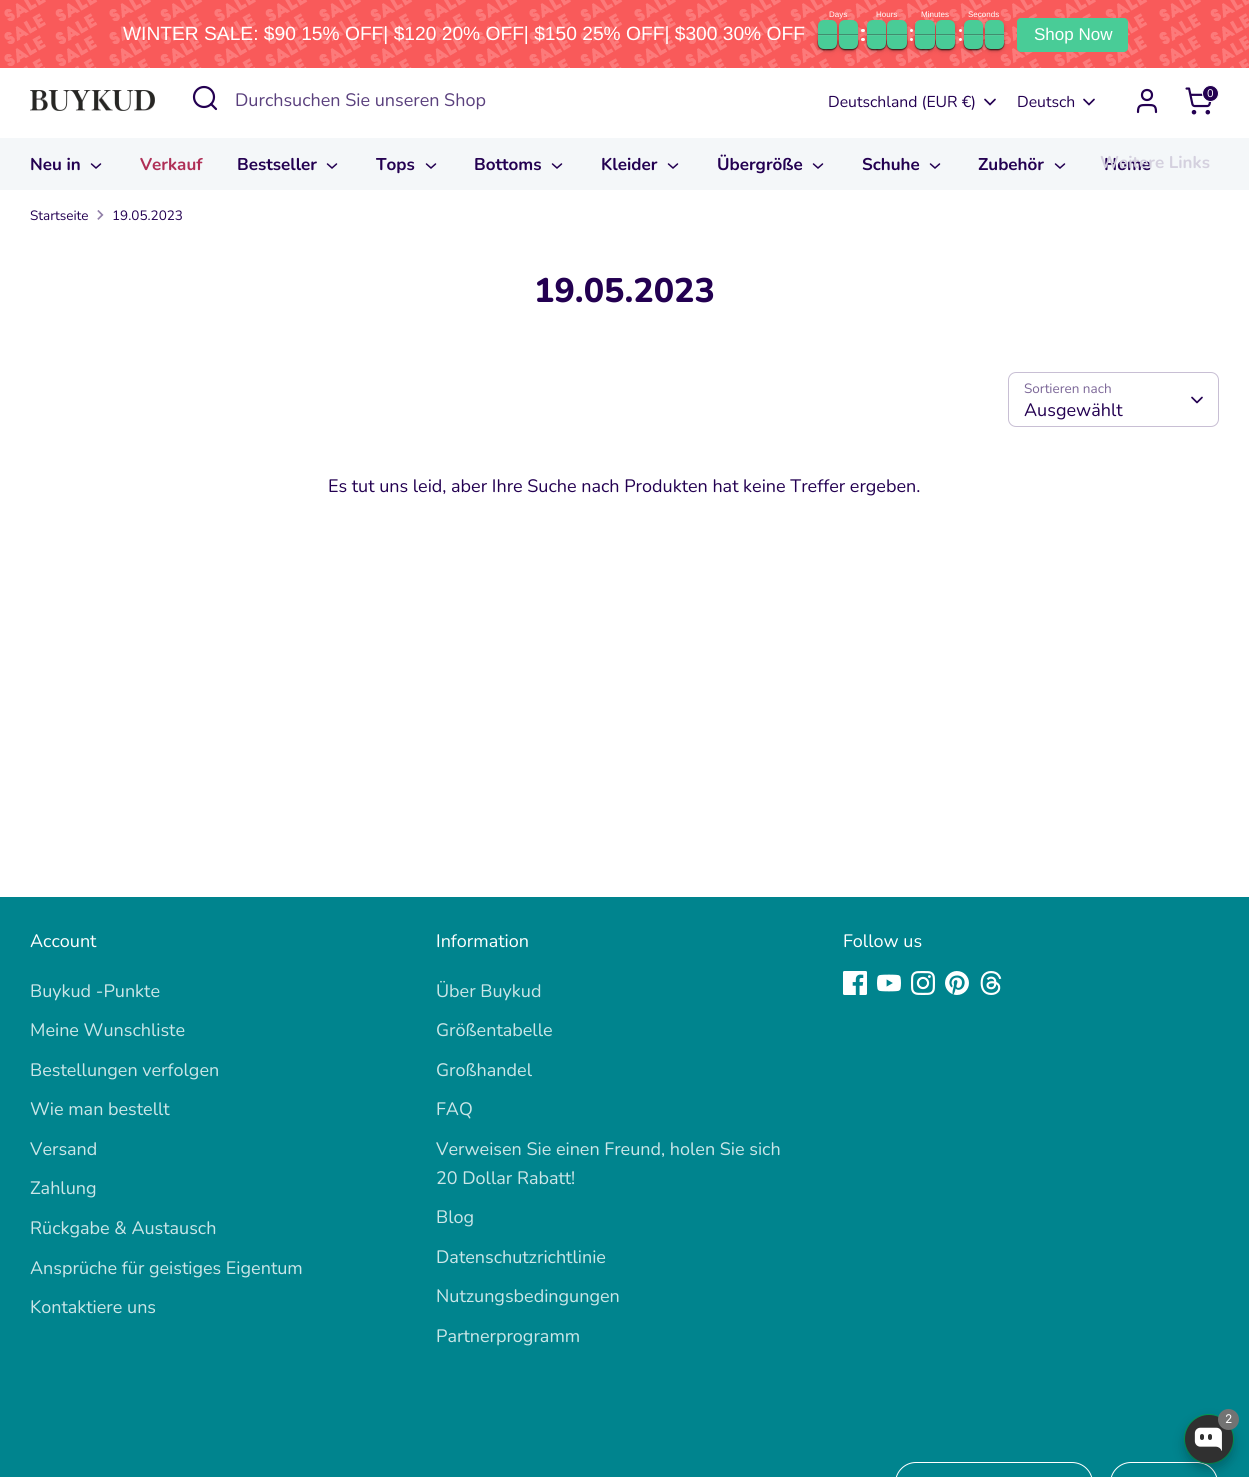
import math
import cairo


def round_path(ctx, x, y, w, h, r):
	ctx.new_sub_path()
	for i, (u, v) in enumerate([(x + w - r, y + h - r), (x + r, y + h - r), (x + r, y + r), (x + w - r, y + r)]):
		ctx.arc(u, v, r, i * math.pi / 2, (i + 1) * math.pi / 2)
	ctx.close_path()

def blur_box(ctx, x, y, w, h, r, blur, alpha):
	ctx.push_group_with_content(cairo.CONTENT_ALPHA)
	ctx.set_operator(cairo.OPERATOR_SOURCE)
	for i in range(15, -16, -2):
		e = blur * i / 6
		if min(w, h) + 2 * e > 0:
			ctx.set_source_rgba(0, 0, 0, alpha * math.erfc((i - 1) / 8.5) / 2)
			round_path(ctx, x - e, y - e, w + 2 * e, h + 2 * e, max(0, min(r + e + blur * .6, min(w, h) / 2 + e)))
			ctx.fill()
	ctx.mask(ctx.pop_group())

def paste(ctx, path, x, y, w, h):
	ctx.save()
	ctx.set_source_surface(cairo.ImageSurface.create_from_png(path), x, y)
	ctx.rectangle(x, y, w, h)
	ctx.fill()
	ctx.restore()

def draw(ctx):
	ctx.set_source_rgb(1, 1, 1)
	ctx.paint()
	paste(ctx, 'media/1.png', 0, 0, 1249, 68)
	ctx.set_source_rgb(0, 0, 0)
	blur_box(ctx, 818, 23, 19, 29, 6, 4, 0.05)
	blur_box(ctx, 818, 22, 19, 29, 6, 1.5, 0.24)
	blur_box(ctx, 818, 36, 19, 14, 6, 0.5, 0.4)
	blur_box(ctx, 839, 23, 19, 29, 6, 4, 0.05)
	blur_box(ctx, 839, 22, 19, 29, 6, 1.5, 0.24)
	blur_box(ctx, 839, 36, 19, 14, 6, 0.5, 0.4)
	ctx.set_source_rgb(0.286, 0.8, 0.592)
	ctx.new_path()
	ctx.move_to(824, 20)
	ctx.line_to(831, 20)
	ctx.curve_to(834.5, 20, 837, 22.5, 837, 26)
	ctx.line_to(837, 35)
	ctx.line_to(818, 35)
	ctx.line_to(818, 26)
	ctx.curve_to(818, 22.5, 820.5, 20, 824, 20)
	ctx.close_path()
	ctx.fill()
	ctx.set_source_rgba(0.2, 0.2, 0.2, 0.4)
	ctx.rectangle(818, 34, 19, 1)
	ctx.fill()
	ctx.set_source_rgb(0, 0, 0)
	blur_box(ctx, 818, 36, 19, 14, 6, 0.5, 0.4)
	ctx.set_source_rgb(0.286, 0.8, 0.592)
	ctx.new_path()
	ctx.move_to(818, 35)
	ctx.line_to(837, 35)
	ctx.line_to(837, 43)
	ctx.curve_to(837, 46.5, 834.5, 49, 831, 49)
	ctx.line_to(824, 49)
	ctx.curve_to(820.5, 49, 818, 46.5, 818, 43)
	ctx.close_path()
	ctx.fill()
	ctx.set_source_rgba(0.8, 0.8, 0.8, 0.1)
	ctx.rectangle(818, 35, 19, 1)
	ctx.fill()
	ctx.set_source_rgb(1, 1, 1)
	round_path(ctx, 861, 29, 4, 3, 1.5)
	ctx.fill()
	round_path(ctx, 861, 38, 4, 3, 1.5)
	ctx.fill()
	ctx.set_source_rgb(0, 0, 0)
	blur_box(ctx, 867, 23, 19, 29, 6, 4, 0.05)
	ctx.set_source_rgb(0.286, 0.8, 0.592)
	ctx.new_path()
	ctx.move_to(845, 20)
	ctx.line_to(852, 20)
	ctx.curve_to(855.5, 20, 858, 22.5, 858, 26)
	ctx.line_to(858, 35)
	ctx.line_to(839, 35)
	ctx.line_to(839, 26)
	ctx.curve_to(839, 22.5, 841.5, 20, 845, 20)
	ctx.close_path()
	ctx.fill()
	ctx.set_source_rgba(0.2, 0.2, 0.2, 0.4)
	ctx.rectangle(839, 34, 19, 1)
	ctx.fill()
	ctx.set_source_rgb(0, 0, 0)
	blur_box(ctx, 839, 36, 19, 14, 6, 0.5, 0.4)
	ctx.set_source_rgb(0.286, 0.8, 0.592)
	ctx.new_path()
	ctx.move_to(839, 35)
	ctx.line_to(858, 35)
	ctx.line_to(858, 43)
	ctx.curve_to(858, 46.5, 855.5, 49, 852, 49)
	ctx.line_to(845, 49)
	ctx.curve_to(841.5, 49, 839, 46.5, 839, 43)
	ctx.close_path()
	ctx.fill()
	ctx.set_source_rgba(0.8, 0.8, 0.8, 0.1)
	ctx.rectangle(839, 35, 19, 1)
	ctx.fill()
	ctx.select_font_face('Liberation Sans')
	ctx.set_font_size(8)
	ctx.set_source_rgb(1, 1, 1)
	ctx.move_to(829, 17)
	ctx.show_text('Days')
	ctx.set_source_rgb(0, 0, 0)
	blur_box(ctx, 867, 22, 19, 29, 6, 1.5, 0.24)
	blur_box(ctx, 867, 36, 19, 14, 6, 0.5, 0.4)
	blur_box(ctx, 887, 23, 20, 29, 6, 4, 0.05)
	blur_box(ctx, 887, 22, 20, 29, 6, 1.5, 0.24)
	blur_box(ctx, 887, 36, 20, 14, 6, 0.5, 0.4)
	ctx.set_source_rgb(0.286, 0.8, 0.592)
	ctx.new_path()
	ctx.move_to(873, 20)
	ctx.line_to(880, 20)
	ctx.curve_to(883.5, 20, 886, 22.5, 886, 26)
	ctx.line_to(886, 35)
	ctx.line_to(867, 35)
	ctx.line_to(867, 26)
	ctx.curve_to(867, 22.5, 869.5, 20, 873, 20)
	ctx.close_path()
	ctx.fill()
	ctx.set_source_rgba(0.2, 0.2, 0.2, 0.4)
	ctx.rectangle(867, 34, 19, 1)
	ctx.fill()
	ctx.set_source_rgb(0, 0, 0)
	blur_box(ctx, 867, 36, 19, 14, 6, 0.5, 0.4)
	ctx.set_source_rgb(0.286, 0.8, 0.592)
	ctx.new_path()
	ctx.move_to(867, 35)
	ctx.line_to(886, 35)
	ctx.line_to(886, 43)
	ctx.curve_to(886, 46.5, 883.5, 49, 880, 49)
	ctx.line_to(873, 49)
	ctx.curve_to(869.5, 49, 867, 46.5, 867, 43)
	ctx.close_path()
	ctx.fill()
	ctx.set_source_rgba(0.8, 0.8, 0.8, 0.1)
	ctx.rectangle(867, 35, 19, 1)
	ctx.fill()
	ctx.set_source_rgb(1, 1, 1)
	ctx.arc(911.5, 30.5, 1.5, 0, 2 * math.pi)
	ctx.fill()
	ctx.arc(911.5, 39.5, 1.5, 0, 2 * math.pi)
	ctx.fill()
	ctx.set_source_rgb(0, 0, 0)
	blur_box(ctx, 915, 23, 20, 29, 6, 4, 0.05)
	ctx.set_source_rgb(0.286, 0.8, 0.592)
	ctx.new_path()
	ctx.move_to(893, 20)
	ctx.line_to(901, 20)
	ctx.curve_to(904.5, 20, 907, 22.5, 907, 26)
	ctx.line_to(907, 35)
	ctx.line_to(887, 35)
	ctx.line_to(887, 26)
	ctx.curve_to(887, 22.5, 889.5, 20, 893, 20)
	ctx.close_path()
	ctx.fill()
	ctx.set_source_rgba(0.2, 0.2, 0.2, 0.4)
	ctx.rectangle(887, 34, 20, 1)
	ctx.fill()
	ctx.set_source_rgb(0, 0, 0)
	blur_box(ctx, 887, 36, 20, 14, 6, 0.5, 0.4)
	ctx.set_source_rgb(0.286, 0.8, 0.592)
	ctx.new_path()
	ctx.move_to(887, 35)
	ctx.line_to(907, 35)
	ctx.line_to(907, 43)
	ctx.curve_to(907, 46.5, 904.5, 49, 901, 49)
	ctx.line_to(893, 49)
	ctx.curve_to(889.5, 49, 887, 46.5, 887, 43)
	ctx.close_path()
	ctx.fill()
	ctx.set_source_rgba(0.8, 0.8, 0.8, 0.1)
	ctx.rectangle(887, 35, 20, 1)
	ctx.fill()
	ctx.set_source_rgb(1, 1, 1)
	ctx.move_to(876, 17)
	ctx.show_text('Hours')
	ctx.set_source_rgb(0, 0, 0)
	blur_box(ctx, 915, 22, 20, 29, 6, 1.5, 0.24)
	blur_box(ctx, 915, 36, 20, 14, 6, 0.5, 0.4)
	blur_box(ctx, 936, 23, 19, 29, 6, 4, 0.05)
	blur_box(ctx, 936, 22, 19, 29, 6, 1.5, 0.24)
	blur_box(ctx, 936, 36, 19, 14, 6, 0.5, 0.4)
	ctx.set_source_rgb(0.286, 0.8, 0.592)
	ctx.new_path()
	ctx.move_to(921, 20)
	ctx.line_to(929, 20)
	ctx.curve_to(932.5, 20, 935, 22.5, 935, 26)
	ctx.line_to(935, 35)
	ctx.line_to(915, 35)
	ctx.line_to(915, 26)
	ctx.curve_to(915, 22.5, 917.5, 20, 921, 20)
	ctx.close_path()
	ctx.fill()
	ctx.set_source_rgba(0.2, 0.2, 0.2, 0.4)
	ctx.rectangle(915, 34, 20, 1)
	ctx.fill()
	ctx.set_source_rgb(0, 0, 0)
	blur_box(ctx, 915, 36, 20, 14, 6, 0.5, 0.4)
	ctx.set_source_rgb(0.286, 0.8, 0.592)
	ctx.new_path()
	ctx.move_to(915, 35)
	ctx.line_to(935, 35)
	ctx.line_to(935, 43)
	ctx.curve_to(935, 46.5, 932.5, 49, 929, 49)
	ctx.line_to(921, 49)
	ctx.curve_to(917.5, 49, 915, 46.5, 915, 43)
	ctx.close_path()
	ctx.fill()
	ctx.set_source_rgba(0.8, 0.8, 0.8, 0.1)
	ctx.rectangle(915, 35, 20, 1)
	ctx.fill()
	ctx.set_source_rgb(1, 1, 1)
	ctx.arc(960.5, 30.5, 1.5, 0, 2 * math.pi)
	ctx.fill()
	ctx.arc(960.5, 39.5, 1.5, 0, 2 * math.pi)
	ctx.fill()
	ctx.set_source_rgb(0, 0, 0)
	blur_box(ctx, 964, 23, 19, 29, 6, 4, 0.05)
	ctx.set_source_rgb(0.286, 0.8, 0.592)
	ctx.new_path()
	ctx.move_to(942, 20)
	ctx.line_to(949, 20)
	ctx.curve_to(952.5, 20, 955, 22.5, 955, 26)
	ctx.line_to(955, 35)
	ctx.line_to(936, 35)
	ctx.line_to(936, 26)
	ctx.curve_to(936, 22.5, 938.5, 20, 942, 20)
	ctx.close_path()
	ctx.fill()
	ctx.set_source_rgba(0.2, 0.2, 0.2, 0.4)
	ctx.rectangle(936, 34, 19, 1)
	ctx.fill()
	ctx.set_source_rgb(0, 0, 0)
	blur_box(ctx, 936, 36, 19, 14, 6, 0.5, 0.4)
	ctx.set_source_rgb(0.286, 0.8, 0.592)
	ctx.new_path()
	ctx.move_to(936, 35)
	ctx.line_to(955, 35)
	ctx.line_to(955, 43)
	ctx.curve_to(955, 46.5, 952.5, 49, 949, 49)
	ctx.line_to(942, 49)
	ctx.curve_to(938.5, 49, 936, 46.5, 936, 43)
	ctx.close_path()
	ctx.fill()
	ctx.set_source_rgba(0.8, 0.8, 0.8, 0.1)
	ctx.rectangle(936, 35, 19, 1)
	ctx.fill()
	ctx.set_source_rgb(1, 1, 1)
	ctx.move_to(921, 17)
	ctx.show_text('Minutes')
	ctx.set_source_rgb(0, 0, 0)
	blur_box(ctx, 964, 22, 19, 29, 6, 1.5, 0.24)
	blur_box(ctx, 964, 36, 19, 14, 6, 0.5, 0.4)
	blur_box(ctx, 985, 23, 19, 29, 6, 4, 0.05)
	blur_box(ctx, 985, 22, 19, 29, 6, 1.5, 0.24)
	blur_box(ctx, 985, 36, 19, 14, 6, 0.5, 0.4)
	ctx.set_source_rgb(0.286, 0.8, 0.592)
	ctx.new_path()
	ctx.move_to(970, 20)
	ctx.line_to(977, 20)
	ctx.curve_to(980.5, 20, 983, 22.5, 983, 26)
	ctx.line_to(983, 35)
	ctx.line_to(964, 35)
	ctx.line_to(964, 26)
	ctx.curve_to(964, 22.5, 966.5, 20, 970, 20)
	ctx.close_path()
	ctx.fill()
	ctx.set_source_rgba(0.2, 0.2, 0.2, 0.4)
	ctx.rectangle(964, 34, 19, 1)
	ctx.fill()
	ctx.set_source_rgb(0, 0, 0)
	blur_box(ctx, 964, 36, 19, 14, 6, 0.5, 0.4)
	ctx.set_source_rgb(0.286, 0.8, 0.592)
	ctx.new_path()
	ctx.move_to(964, 35)
	ctx.line_to(983, 35)
	ctx.line_to(983, 43)
	ctx.curve_to(983, 46.5, 980.5, 49, 977, 49)
	ctx.line_to(970, 49)
	ctx.curve_to(966.5, 49, 964, 46.5, 964, 43)
	ctx.close_path()
	ctx.fill()
	ctx.set_source_rgba(0.8, 0.8, 0.8, 0.1)
	ctx.rectangle(964, 35, 19, 1)
	ctx.fill()
	ctx.set_source_rgb(0.286, 0.8, 0.592)
	ctx.new_path()
	ctx.move_to(991, 20)
	ctx.line_to(998, 20)
	ctx.curve_to(1001.5, 20, 1004, 22.5, 1004, 26)
	ctx.line_to(1004, 35)
	ctx.line_to(985, 35)
	ctx.line_to(985, 26)
	ctx.curve_to(985, 22.5, 987.5, 20, 991, 20)
	ctx.close_path()
	ctx.fill()
	ctx.set_source_rgba(0.2, 0.2, 0.2, 0.4)
	ctx.rectangle(985, 34, 19, 1)
	ctx.fill()
	ctx.set_source_rgb(0, 0, 0)
	blur_box(ctx, 985, 36, 19, 14, 6, 0.5, 0.4)
	ctx.set_source_rgb(0.286, 0.8, 0.592)
	ctx.new_path()
	ctx.move_to(985, 35)
	ctx.line_to(1004, 35)
	ctx.line_to(1004, 43)
	ctx.curve_to(1004, 46.5, 1001.5, 49, 998, 49)
	ctx.line_to(991, 49)
	ctx.curve_to(987.5, 49, 985, 46.5, 985, 43)
	ctx.close_path()
	ctx.fill()
	ctx.set_source_rgba(0.8, 0.8, 0.8, 0.1)
	ctx.rectangle(985, 35, 19, 1)
	ctx.fill()
	ctx.set_source_rgb(1, 1, 1)
	ctx.move_to(968, 17)
	ctx.show_text('Seconds')
	ctx.set_font_size(19.2)
	ctx.move_to(123, 40)
	ctx.show_text('WINTER SALE: $90 15% OFF| $120 20% OFF| $150 25% OFF| $300 30% OFF')
	ctx.set_source_rgb(0.286, 0.8, 0.592)
	round_path(ctx, 1017, 18, 111, 34, 4)
	ctx.fill()
	ctx.set_font_size(17)
	ctx.set_source_rgb(1, 1, 1)
	ctx.move_to(1034, 40)
	ctx.show_text('Shop Now')
	paste(ctx, 'media/2.png', 30, 90, 125, 21)
	ctx.arc(204, 97, 10, 0, 2 * math.pi)
	ctx.set_source_rgb(0.137, 0, 0.318)
	ctx.set_line_width(2.2)
	ctx.stroke()
	ctx.new_path()
	ctx.move_to(216, 109)
	ctx.line_to(211, 104)
	ctx.set_line_cap(cairo.LINE_CAP_ROUND)
	ctx.set_line_join(cairo.LINE_JOIN_ROUND)
	ctx.stroke()
	ctx.select_font_face('Nunito')
	ctx.set_font_size(18)
	ctx.set_source_rgb(0.353, 0.251, 0.49)
	ctx.move_to(235, 106)
	ctx.show_text('Durchsuchen Sie unseren Shop')
	ctx.new_path()
	ctx.move_to(1156, 112)
	ctx.curve_to(1156, 105, 1153.5, 105, 1147, 105)
	ctx.curve_to(1140.5, 105, 1138, 105, 1138, 112)
	ctx.set_source_rgb(0.137, 0, 0.318)
	ctx.stroke()
	ctx.arc(1147, 95, 5, 0, 2 * math.pi)
	ctx.set_line_cap(cairo.LINE_CAP_BUTT)
	ctx.set_line_join(cairo.LINE_JOIN_MITER)
	ctx.stroke()
	paste(ctx, 'media/3.png', 1185, 87, 27, 28)
	ctx.arc(1210.5, 93.5, 8, 0, 2 * math.pi)
	ctx.fill_preserve()
	ctx.set_source_rgb(1, 1, 1)
	ctx.set_line_width(1)
	ctx.stroke()
	ctx.set_font_size(11)
	ctx.move_to(1207, 97)
	ctx.show_text('0')
	ctx.set_font_size(15.75)
	ctx.set_source_rgb(0.137, 0, 0.318)
	ctx.move_to(828, 107)
	ctx.show_text('Deutschland (EUR €)')
	ctx.new_path()
	ctx.move_to(985, 99.5)
	ctx.line_to(990, 104.5)
	ctx.line_to(995, 99.5)
	ctx.set_line_width(1.7)
	ctx.set_line_cap(cairo.LINE_CAP_ROUND)
	ctx.stroke()
	ctx.move_to(1017, 107)
	ctx.show_text('Deutsch')
	ctx.new_path()
	ctx.move_to(1084, 99.5)
	ctx.line_to(1089, 104.5)
	ctx.line_to(1094, 99.5)
	ctx.stroke()
	ctx.set_source_rgb(0.957, 0.965, 0.973)
	ctx.rectangle(0, 138, 1249, 52)
	ctx.fill()
	ctx.select_font_face('Nunito', cairo.FONT_SLANT_NORMAL, cairo.FONT_WEIGHT_BOLD)
	ctx.set_font_size(17)
	ctx.set_source_rgb(0.137, 0, 0.318)
	ctx.move_to(30, 170)
	ctx.show_text('Neu in')
	ctx.new_path()
	ctx.move_to(91.5, 164)
	ctx.line_to(96, 168)
	ctx.line_to(100.5, 164)
	ctx.set_line_width(1.5)
	ctx.stroke()
	ctx.set_source_rgb(0.686, 0.184, 0.337)
	ctx.move_to(140, 170)
	ctx.show_text('Verkauf')
	ctx.set_source_rgb(0.137, 0, 0.318)
	ctx.move_to(237, 170)
	ctx.show_text('Bestseller')
	ctx.new_path()
	ctx.move_to(327.5, 164)
	ctx.line_to(332, 168)
	ctx.line_to(336.5, 164)
	ctx.stroke()
	ctx.move_to(601, 170)
	ctx.show_text('Kleider')
	ctx.new_path()
	ctx.move_to(668.5, 164)
	ctx.line_to(673, 168)
	ctx.line_to(677.5, 164)
	ctx.stroke()
	ctx.move_to(717, 170)
	ctx.show_text('Übergröße')
	ctx.new_path()
	ctx.move_to(813.5, 164)
	ctx.line_to(818, 168)
	ctx.line_to(822.5, 164)
	ctx.stroke()
	ctx.move_to(862, 170)
	ctx.show_text('Schuhe')
	ctx.new_path()
	ctx.move_to(930.5, 164)
	ctx.line_to(935, 168)
	ctx.line_to(939.5, 164)
	ctx.stroke()
	ctx.move_to(978, 170)
	ctx.show_text('Zubehör')
	ctx.new_path()
	ctx.move_to(1055.5, 164)
	ctx.line_to(1060, 168)
	ctx.line_to(1064.5, 164)
	ctx.stroke()
	ctx.move_to(1104, 170)
	ctx.show_text('Home')
	ctx.set_source_rgb(0.831, 0.816, 0.871)
	ctx.move_to(1100, 168)
	ctx.show_text('Weitere Links')
	ctx.set_source_rgb(0.137, 0, 0.318)
	ctx.move_to(376, 170)
	ctx.show_text('Tops')
	ctx.new_path()
	ctx.move_to(426.5, 164)
	ctx.line_to(431, 168)
	ctx.line_to(435.5, 164)
	ctx.stroke()
	ctx.move_to(474, 170)
	ctx.show_text('Bottoms')
	ctx.new_path()
	ctx.move_to(552.5, 164)
	ctx.line_to(557, 168)
	ctx.line_to(561.5, 164)
	ctx.stroke()
	ctx.select_font_face('Nunito')
	ctx.set_font_size(13.5)
	ctx.move_to(30, 220)
	ctx.show_text('Startseite')
	paste(ctx, 'media/4.png', 97, 210, 7, 10)
	ctx.move_to(112, 220)
	ctx.show_text('19.05.2023')
	ctx.select_font_face('Nunito ExtraBold')
	ctx.set_font_size(34)
	ctx.move_to(534, 302)
	ctx.show_text('19.05.2023')
	round_path(ctx, 1008.5, 372.5, 210, 54, 7.5)
	ctx.set_source_rgb(0.784, 0.749, 0.831)
	ctx.set_line_width(1)
	ctx.set_line_cap(cairo.LINE_CAP_BUTT)
	ctx.stroke()
	ctx.select_font_face('Nunito')
	ctx.set_font_size(13.5)
	ctx.set_source_rgb(0.482, 0.4, 0.592)
	ctx.move_to(1024, 393)
	ctx.show_text('Sortieren nach')
	ctx.new_path()
	ctx.move_to(1192, 397.5)
	ctx.line_to(1197, 402.5)
	ctx.line_to(1202, 397.5)
	ctx.set_source_rgb(0.137, 0, 0.318)
	ctx.set_line_width(1.7)
	ctx.set_line_cap(cairo.LINE_CAP_ROUND)
	ctx.set_line_join(cairo.LINE_JOIN_ROUND)
	ctx.stroke()
	ctx.set_font_size(18)
	ctx.move_to(1024, 416)
	ctx.show_text('Ausgewählt')
	ctx.move_to(328, 492)
	ctx.show_text('Es tut uns leid, aber Ihre Suche nach Produkten hat keine Treffer ergeben.')
	ctx.set_source_rgb(0, 0.518, 0.557)
	ctx.rectangle(0, 897, 1249, 580)
	ctx.fill()
	ctx.set_source_rgb(1, 1, 1)
	ctx.move_to(30, 947)
	ctx.show_text('Account')
	ctx.set_source_rgb(0.8, 0.902, 0.91)
	for x, y, s in [
		(30, 997, 'Buykud -Punkte'),
		(30, 1036, 'Meine Wunschliste'),
		(30, 1076, 'Bestellungen verfolgen'),
		(30, 1115, 'Wie man bestellt'),
		(30, 1155, 'Versand'),
		(30, 1194, 'Zahlung'),
		(30, 1234, 'Rückgabe & Austausch'),
		(30, 1274, 'Ansprüche für geistiges Eigentum'),
		(30, 1313, 'Kontaktiere uns'),
	]:
		ctx.move_to(x, y)
		ctx.show_text(s)
	ctx.set_source_rgb(1, 1, 1)
	ctx.move_to(436, 947)
	ctx.show_text('Information')
	ctx.set_source_rgb(0.8, 0.902, 0.91)
	for x, y, s in [
		(436, 997, 'Über Buykud'),
		(436, 1036, 'Größentabelle'),
		(436, 1076, 'Großhandel'),
		(436, 1115, 'FAQ'),
		(436, 1155, 'Verweisen Sie einen Freund, holen Sie sich'),
		(436, 1184, '20 Dollar Rabatt!'),
		(436, 1223, 'Blog'),
		(436, 1263, 'Datenschutzrichtlinie'),
		(436, 1302, 'Nutzungsbedingungen'),
		(436, 1342, 'Partnerprogramm'),
	]:
		ctx.move_to(x, y)
		ctx.show_text(s)
	ctx.set_source_rgb(1, 1, 1)
	ctx.move_to(843, 947)
	ctx.show_text('Follow us')
	paste(ctx, 'media/5.png', 843, 971, 24, 24)
	paste(ctx, 'media/6.png', 877, 974, 24, 18)
	paste(ctx, 'media/7.png', 911, 971, 24, 24)
	paste(ctx, 'media/8.png', 945, 971, 24, 24)
	paste(ctx, 'media/9.png', 980, 971, 22, 24)
	round_path(ctx, 895.5, 1462.5, 197, 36, 20.5)
	ctx.set_line_width(1)
	ctx.set_line_cap(cairo.LINE_CAP_BUTT)
	ctx.set_line_join(cairo.LINE_JOIN_MITER)
	ctx.stroke()
	round_path(ctx, 1110.5, 1462.5, 107, 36, 20.5)
	ctx.stroke()
	ctx.arc(1209, 1439, 24.5, 0, 2 * math.pi)
	ctx.set_source_rgb(0.024, 0.612, 0.31)
	ctx.stroke()
	ctx.set_source_rgb(0, 0, 0)
	blur_box(ctx, 1185, 1421, 48, 48, 24, 6, 0.25)
	ctx.set_source_rgb(0.188, 0.188, 0.188)
	ctx.arc(1209, 1439, 24, 0, 2 * math.pi)
	ctx.fill()
	paste(ctx, 'media/10.png', 1194, 1427, 28, 24)
	ctx.set_source_rgb(0.451, 0.451, 0.451)
	ctx.arc(1228.5, 1419.5, 10.5, 0, 2 * math.pi)
	ctx.fill()
	ctx.select_font_face('Inter')
	ctx.set_font_size(12)
	ctx.set_source_rgb(1, 1, 1)
	ctx.move_to(1225, 1423)
	ctx.show_text('2')


surface = cairo.ImageSurface(cairo.FORMAT_RGB24, 1249, 1477)
ctx = cairo.Context(surface)
options = cairo.FontOptions()
options.set_hint_metrics(cairo.HINT_METRICS_OFF)
options.set_hint_style(cairo.HINT_STYLE_NONE)
ctx.set_font_options(options)
ctx.set_miter_limit(4)
draw(ctx)
surface.write_to_png('image.png')
